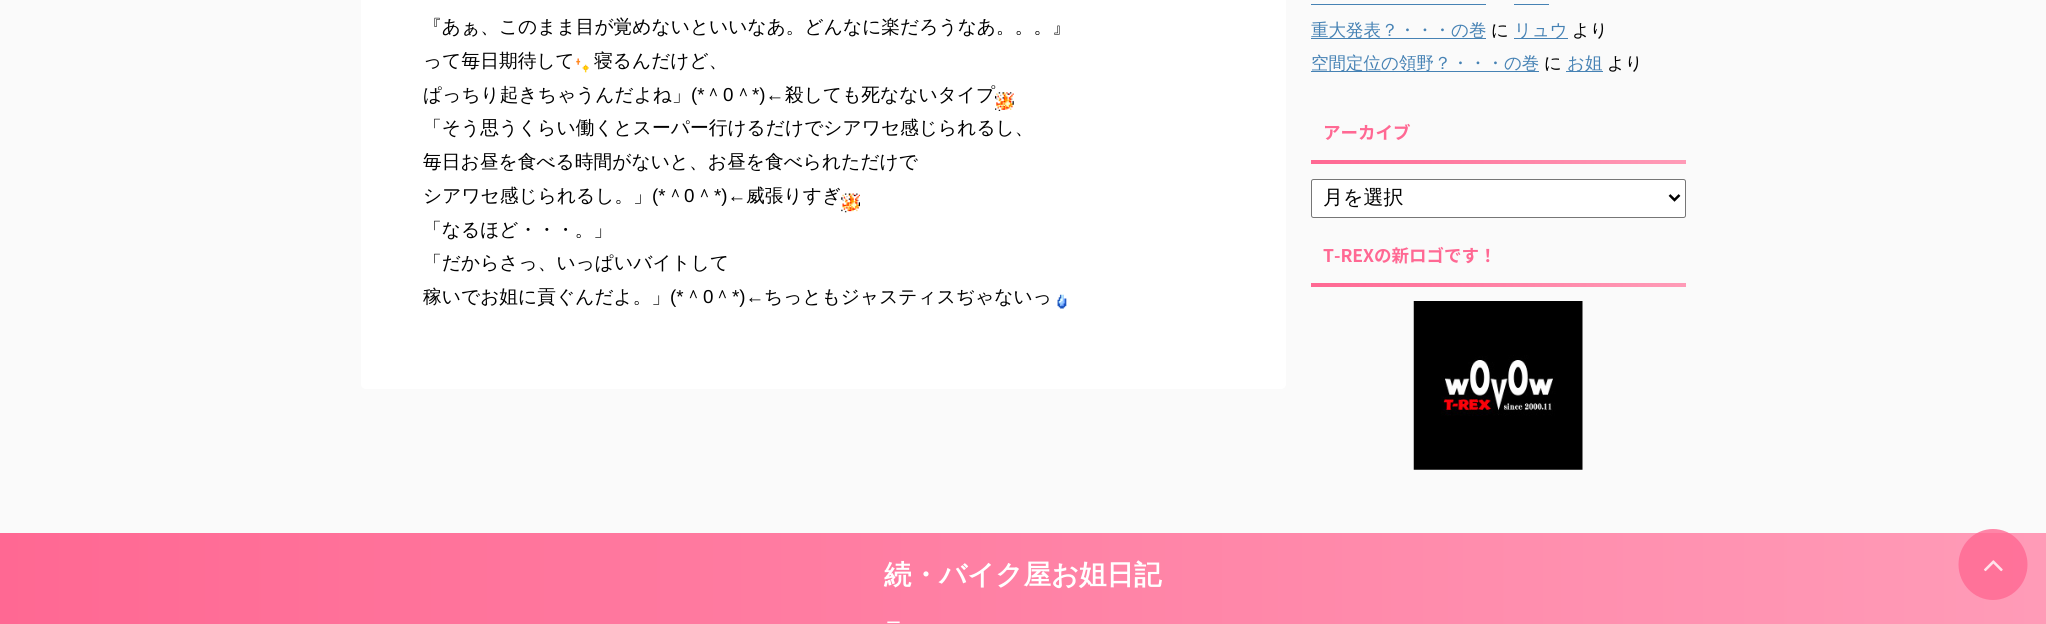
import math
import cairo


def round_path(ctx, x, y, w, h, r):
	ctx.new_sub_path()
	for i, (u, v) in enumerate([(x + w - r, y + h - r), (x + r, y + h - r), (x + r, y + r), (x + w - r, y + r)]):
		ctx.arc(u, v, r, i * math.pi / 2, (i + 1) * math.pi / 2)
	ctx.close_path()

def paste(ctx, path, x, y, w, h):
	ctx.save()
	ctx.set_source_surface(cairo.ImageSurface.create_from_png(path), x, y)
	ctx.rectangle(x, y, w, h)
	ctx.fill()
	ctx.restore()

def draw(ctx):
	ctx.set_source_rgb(0.98, 0.98, 0.98)
	ctx.paint()
	ctx.set_source_rgb(1, 1, 1)
	round_path(ctx, 361, -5, 925, 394, 5)
	ctx.fill()
	ctx.select_font_face('WenQuanYi Zen Hei Medium')
	ctx.set_font_size(18.75)
	ctx.set_source_rgb(0, 0, 0)
	ctx.move_to(423, 33)
	ctx.show_text('『あぁ、このまま目が覚めないといいなあ。どんなに楽だろうなあ。。。』')
	ctx.move_to(423, 67)
	ctx.show_text('って毎日期待して')
	paste(ctx, 'media/1.png', 576, 58, 13, 15)
	ctx.move_to(594, 67)
	ctx.show_text('寝るんだけど、')
	ctx.move_to(423, 101)
	ctx.show_text('ぱっちり起きちゃうんだよね」')
	ctx.select_font_face('Liberation Sans')
	ctx.move_to(691, 101)
	ctx.show_text('(*')
	ctx.select_font_face('WenQuanYi Zen Hei Medium')
	ctx.move_to(704, 101)
	ctx.show_text('＾')
	ctx.select_font_face('Liberation Sans')
	ctx.move_to(723, 101)
	ctx.show_text('0')
	ctx.select_font_face('WenQuanYi Zen Hei Medium')
	ctx.move_to(734, 101)
	ctx.show_text('＾')
	ctx.select_font_face('Liberation Sans')
	ctx.move_to(752, 101)
	ctx.show_text('*)←')
	ctx.select_font_face('WenQuanYi Zen Hei Medium')
	ctx.move_to(785, 101)
	ctx.show_text('殺しても死なないタイプ')
	paste(ctx, 'media/2.png', 995, 92, 19, 19)
	for x, y, s in [
		(423, 134, '「そう思うくらい働くとスーパー行けるだけでシアワセ感じられるし、'),
		(423, 168, '毎日お昼を食べる時間がないと、お昼を食べられただけで'),
		(423, 202, 'シアワセ感じられるし。」'),
	]:
		ctx.move_to(x, y)
		ctx.show_text(s)
	ctx.select_font_face('Liberation Sans')
	ctx.move_to(652, 202)
	ctx.show_text('(*')
	ctx.select_font_face('WenQuanYi Zen Hei Medium')
	ctx.move_to(666, 202)
	ctx.show_text('＾')
	ctx.select_font_face('Liberation Sans')
	ctx.move_to(684, 202)
	ctx.show_text('0')
	ctx.select_font_face('WenQuanYi Zen Hei Medium')
	ctx.move_to(695, 202)
	ctx.show_text('＾')
	ctx.select_font_face('Liberation Sans')
	ctx.move_to(714, 202)
	ctx.show_text('*)←')
	ctx.select_font_face('WenQuanYi Zen Hei Medium')
	ctx.move_to(746, 202)
	ctx.show_text('威張りすぎ')
	paste(ctx, 'media/3.png', 841, 193, 19, 20)
	for x, y, s in [
		(423, 236, '「なるほど・・・。」'),
		(423, 269, '「だからさっ、いっぱいバイトして'),
		(423, 303, '稼いでお姐に貢ぐんだよ。」'),
	]:
		ctx.move_to(x, y)
		ctx.show_text(s)
	ctx.select_font_face('Liberation Sans')
	ctx.move_to(670, 303)
	ctx.show_text('(*')
	ctx.select_font_face('WenQuanYi Zen Hei Medium')
	ctx.move_to(684, 303)
	ctx.show_text('＾')
	ctx.select_font_face('Liberation Sans')
	ctx.move_to(703, 303)
	ctx.show_text('0')
	ctx.select_font_face('WenQuanYi Zen Hei Medium')
	ctx.move_to(713, 303)
	ctx.show_text('＾')
	ctx.select_font_face('Liberation Sans')
	ctx.move_to(732, 303)
	ctx.show_text('*)←')
	ctx.select_font_face('WenQuanYi Zen Hei Medium')
	ctx.move_to(764, 303)
	ctx.show_text('ちっともジャスティスぢゃないっ')
	paste(ctx, 'media/4.png', 1057, 294, 10, 15)
	ctx.set_source_rgb(0.275, 0.51, 0.706)
	ctx.rectangle(1311, 4, 175, 1)
	ctx.rectangle(1514, 4, 35, 1)
	ctx.rectangle(1311, 38, 175, 1)
	ctx.fill()
	ctx.set_font_size(17.5)
	ctx.move_to(1311, 36)
	ctx.show_text('重大発表？・・・の巻')
	ctx.set_source_rgb(0, 0, 0)
	ctx.move_to(1491, 36)
	ctx.show_text('に')
	ctx.set_source_rgb(0.275, 0.51, 0.706)
	ctx.rectangle(1514, 38, 54, 1)
	ctx.fill()
	ctx.move_to(1514, 36)
	ctx.show_text('リュウ')
	ctx.set_source_rgb(0, 0, 0)
	ctx.move_to(1572, 36)
	ctx.show_text('より')
	ctx.set_source_rgb(0.275, 0.51, 0.706)
	ctx.rectangle(1311, 71, 228, 1)
	ctx.fill()
	ctx.move_to(1311, 69)
	ctx.show_text('空間定位の領野？・・・の巻')
	ctx.set_source_rgb(0, 0, 0)
	ctx.move_to(1544, 69)
	ctx.show_text('に')
	ctx.set_source_rgb(0.275, 0.51, 0.706)
	ctx.rectangle(1566, 71, 37, 1)
	ctx.fill()
	ctx.move_to(1567, 69)
	ctx.show_text('お姐')
	ctx.set_source_rgb(0, 0, 0)
	ctx.move_to(1607, 69)
	ctx.show_text('より')
	ctx.select_font_face('Noto Sans JP', cairo.FONT_SLANT_NORMAL, cairo.FONT_WEIGHT_BOLD)
	ctx.set_source_rgb(1, 0.408, 0.576)
	ctx.move_to(1323, 139)
	ctx.show_text('アーカイブ')
	gradient = cairo.LinearGradient(1686, 162, 1311, 162)
	gradient.add_color_stop_rgba(0, 1, 0.608, 0.718, 1)
	gradient.add_color_stop_rgba(1, 1, 0.408, 0.576, 1)
	ctx.set_source(gradient)
	ctx.rectangle(1311, 160, 375, 4)
	ctx.fill()
	ctx.set_source_rgb(1, 1, 1)
	round_path(ctx, 1311.5, 179.5, 374, 38, 2)
	ctx.fill_preserve()
	ctx.set_source_rgb(0.463, 0.463, 0.463)
	ctx.set_line_width(1)
	ctx.stroke()
	ctx.new_path()
	ctx.move_to(1669.5, 195)
	ctx.line_to(1674.5, 200)
	ctx.line_to(1679.5, 195)
	ctx.set_source_rgb(0, 0, 0)
	ctx.set_line_width(2.5)
	ctx.stroke()
	ctx.select_font_face('WenQuanYi Zen Hei Medium')
	ctx.set_font_size(20)
	ctx.move_to(1323, 204)
	ctx.show_text('月を選択')
	ctx.select_font_face('Noto Sans JP', cairo.FONT_SLANT_NORMAL, cairo.FONT_WEIGHT_BOLD)
	ctx.set_font_size(17.5)
	ctx.set_source_rgb(1, 0.408, 0.576)
	ctx.move_to(1323, 262)
	ctx.show_text('T-REXの新ロゴです！')
	gradient = cairo.LinearGradient(1686, 284, 1311, 284)
	gradient.add_color_stop_rgba(0, 1, 0.608, 0.718, 1)
	gradient.add_color_stop_rgba(1, 1, 0.408, 0.576, 1)
	ctx.set_source(gradient)
	ctx.rectangle(1311, 283, 375, 4)
	ctx.fill()
	paste(ctx, 'media/5.png', 1413, 301, 170, 169)
	gradient = cairo.LinearGradient(2046, 611, 0, 611)
	gradient.add_color_stop_rgba(0, 1, 0.608, 0.718, 1)
	gradient.add_color_stop_rgba(1, 1, 0.408, 0.576, 1)
	ctx.set_source(gradient)
	ctx.rectangle(0, 533, 2046, 91)
	ctx.fill()
	ctx.select_font_face('WenQuanYi Zen Hei', cairo.FONT_SLANT_NORMAL, cairo.FONT_WEIGHT_BOLD)
	ctx.set_font_size(27.5)
	ctx.set_source_rgb(1, 1, 1)
	ctx.move_to(884, 584)
	ctx.show_text('続・バイク屋お姐日記')
	ctx.select_font_face('WenQuanYi Zen Hei Medium')
	ctx.set_font_size(15)
	ctx.move_to(886, 628)
	ctx.show_text('ー')
	ctx.set_source_rgba(1, 0.408, 0.576, 0.8)
	ctx.new_path()
	ctx.move_to(1993, 529)
	ctx.curve_to(2012, 529, 2027.5, 545, 2027.5, 564.5)
	ctx.curve_to(2027.5, 584, 2012, 600, 1993, 600)
	ctx.curve_to(1974, 600, 1958.5, 584, 1958.5, 564.5)
	ctx.curve_to(1958.5, 545, 1974, 529, 1993, 529)
	ctx.close_path()
	ctx.fill()
	paste(ctx, 'media/6.png', 1984, 560, 19, 12)


surface = cairo.ImageSurface(cairo.FORMAT_RGB24, 2046, 624)
ctx = cairo.Context(surface)
options = cairo.FontOptions()
options.set_hint_metrics(cairo.HINT_METRICS_OFF)
options.set_hint_style(cairo.HINT_STYLE_NONE)
ctx.set_font_options(options)
ctx.set_miter_limit(4)
draw(ctx)
surface.write_to_png('image.png')
